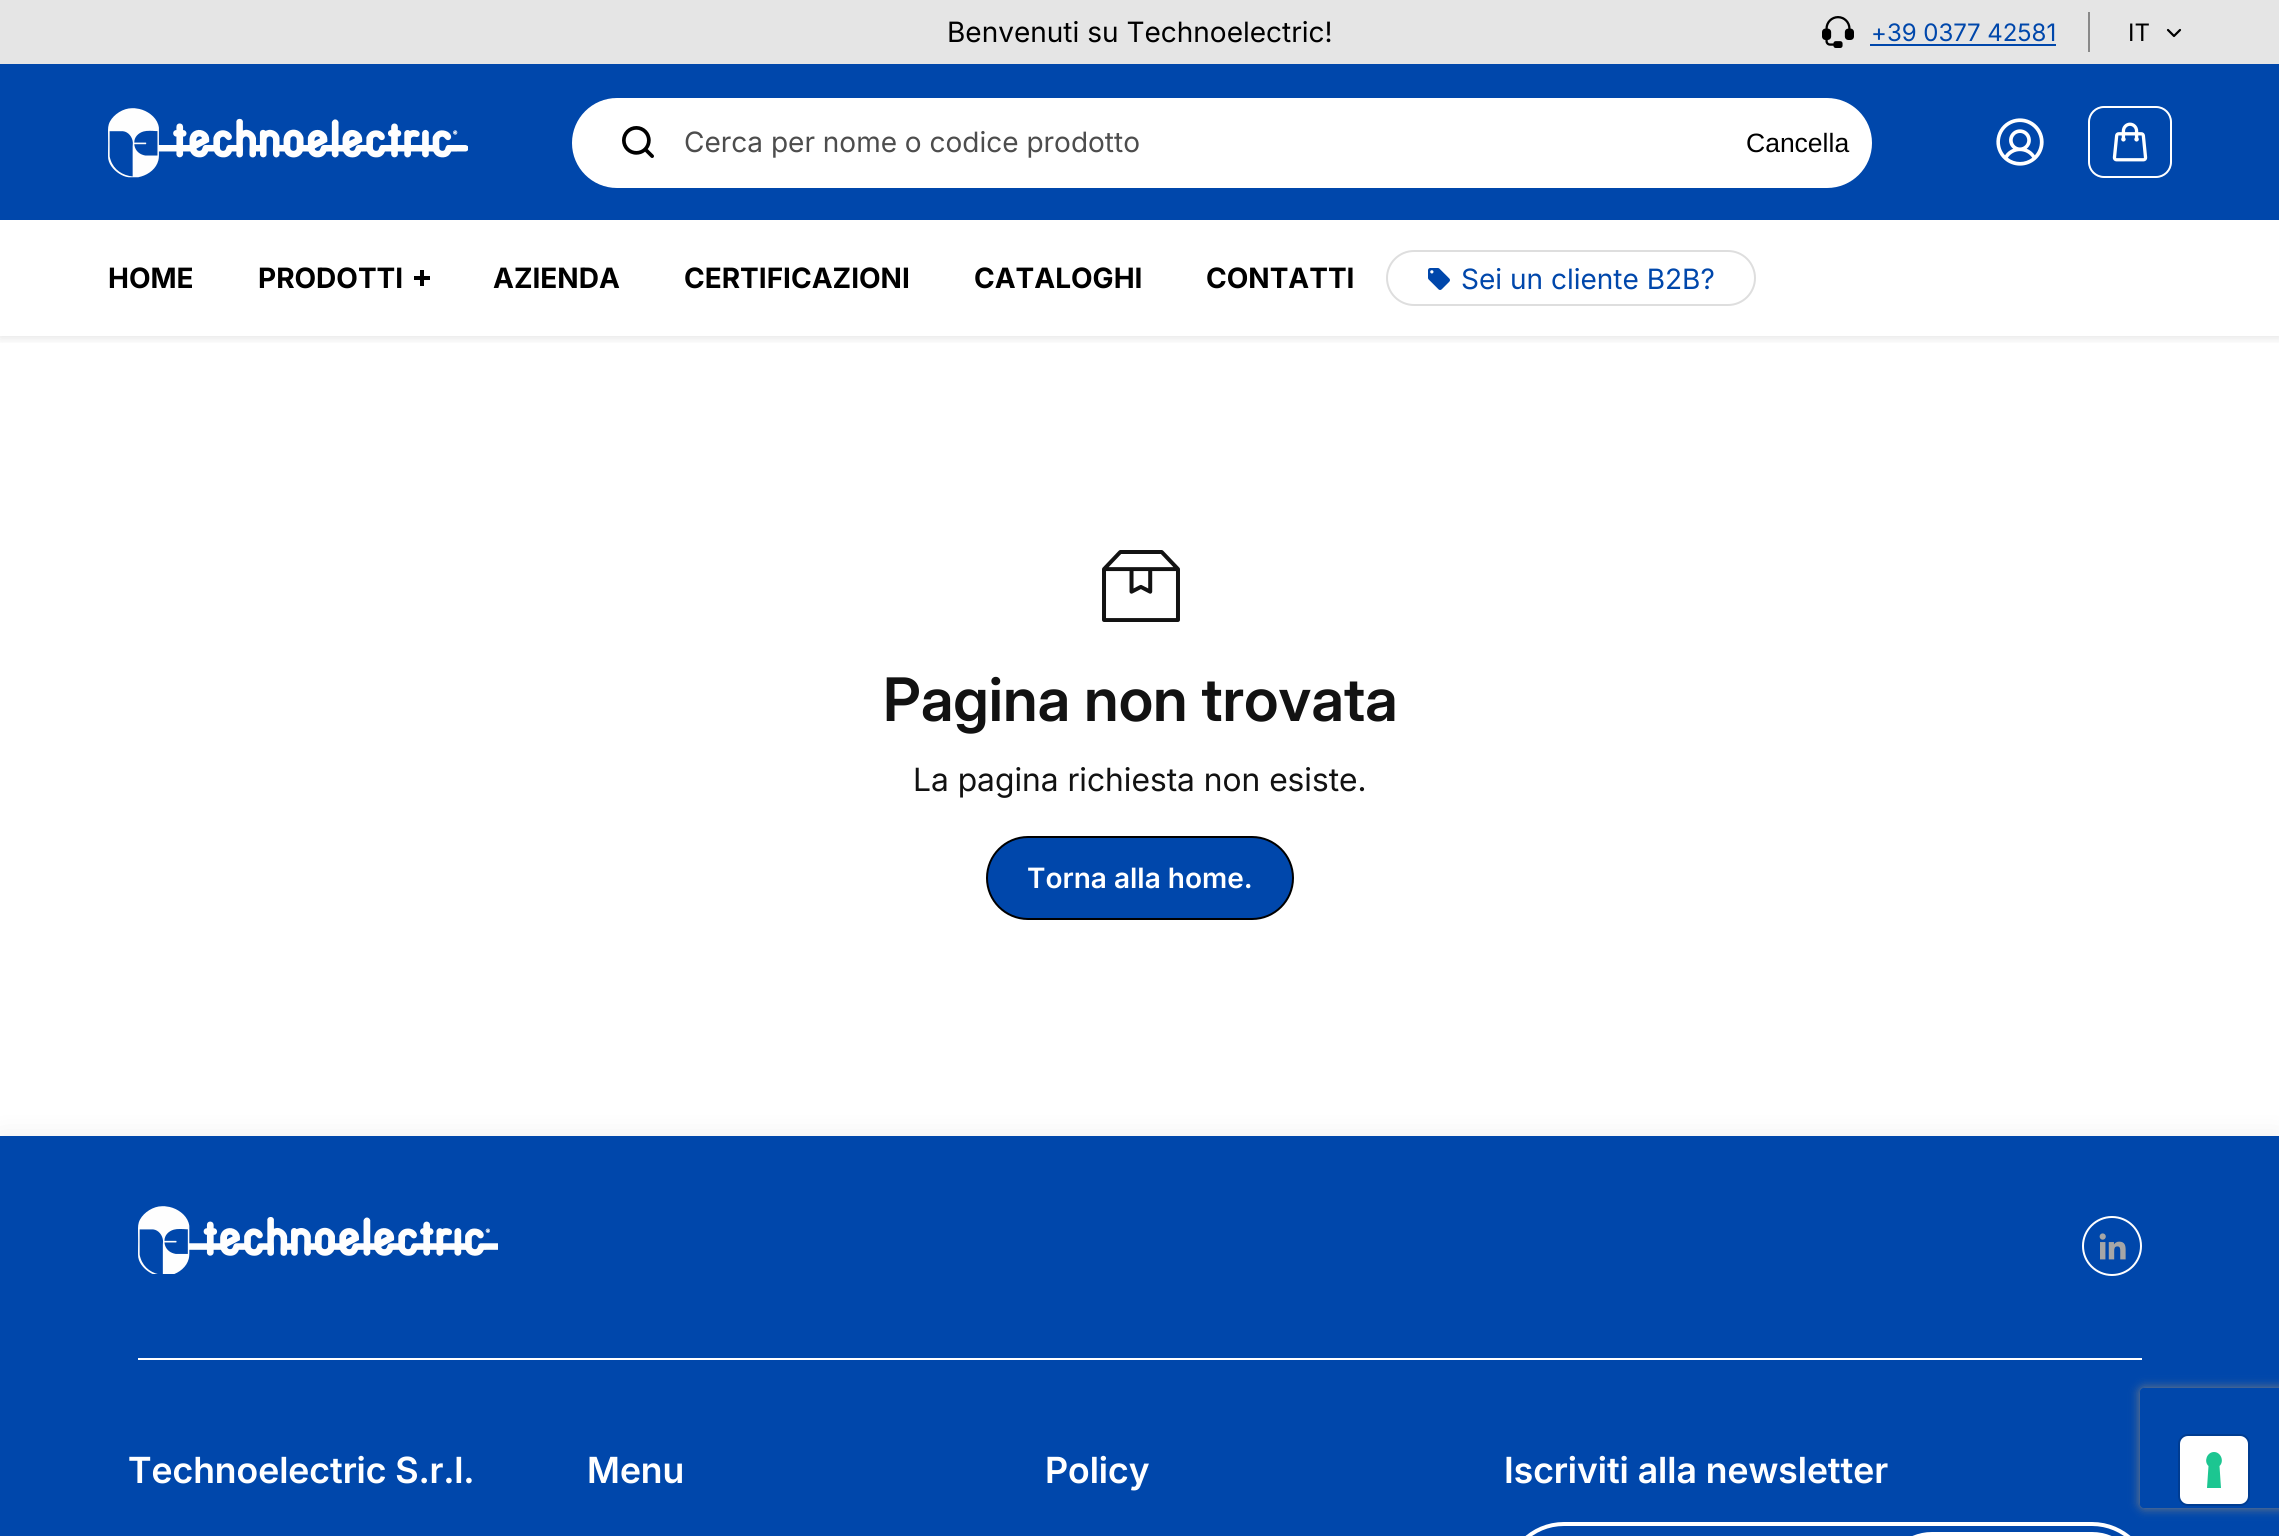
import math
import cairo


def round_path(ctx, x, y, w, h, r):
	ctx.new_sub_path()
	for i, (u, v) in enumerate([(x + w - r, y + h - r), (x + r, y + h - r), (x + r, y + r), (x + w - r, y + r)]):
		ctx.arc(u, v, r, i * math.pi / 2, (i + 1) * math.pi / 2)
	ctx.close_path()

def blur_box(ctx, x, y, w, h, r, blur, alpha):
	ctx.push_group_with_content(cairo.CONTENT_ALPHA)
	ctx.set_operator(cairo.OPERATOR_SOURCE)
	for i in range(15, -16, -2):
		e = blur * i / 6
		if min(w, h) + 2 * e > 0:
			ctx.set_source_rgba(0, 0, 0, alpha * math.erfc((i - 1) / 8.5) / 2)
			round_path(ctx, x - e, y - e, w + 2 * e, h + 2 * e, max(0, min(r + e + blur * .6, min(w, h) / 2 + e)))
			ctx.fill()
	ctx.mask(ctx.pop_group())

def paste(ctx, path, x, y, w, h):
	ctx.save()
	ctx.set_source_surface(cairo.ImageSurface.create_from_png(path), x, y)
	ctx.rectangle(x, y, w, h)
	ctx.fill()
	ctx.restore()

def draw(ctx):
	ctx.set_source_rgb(1, 1, 1)
	ctx.paint()
	ctx.save()
	ctx.rectangle(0, 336, 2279, 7)
	ctx.clip()
	ctx.set_source_rgb(0, 0, 0)
	blur_box(ctx, 0, 66, 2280, 272, 0, 5, 0.11)
	ctx.restore()
	ctx.set_source_rgb(0.898, 0.898, 0.898)
	ctx.rectangle(0, 0, 2279, 64)
	ctx.fill()
	ctx.select_font_face('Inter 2')
	ctx.set_font_size(28)
	ctx.set_source_rgb(0, 0, 0)
	ctx.move_to(947, 42)
	ctx.show_text('Benvenuti su Technoelectric!')
	paste(ctx, 'media/1.png', 1822, 16, 32, 32)
	ctx.set_font_size(24)
	ctx.set_source_rgb(0, 0.278, 0.671)
	ctx.move_to(1871, 41)
	ctx.show_text('+39 0377 42581')
	ctx.rectangle(1870, 44, 186, 2)
	ctx.fill()
	ctx.set_source_rgb(0.537, 0.537, 0.537)
	ctx.rectangle(2088, 12, 2, 40)
	ctx.fill()
	ctx.set_source_rgb(0, 0, 0)
	ctx.move_to(2128, 41)
	ctx.show_text('IT')
	ctx.new_path()
	ctx.move_to(2180, 30)
	ctx.line_to(2174, 36)
	ctx.line_to(2168, 30)
	ctx.set_line_width(2.2)
	ctx.set_line_cap(cairo.LINE_CAP_ROUND)
	ctx.set_line_join(cairo.LINE_JOIN_ROUND)
	ctx.stroke()
	ctx.set_source_rgb(0, 0.278, 0.671)
	ctx.rectangle(0, 64, 2279, 156)
	ctx.fill()
	paste(ctx, 'media/2.png', 108, 108, 360, 70)
	ctx.set_source_rgb(1, 1, 1)
	round_path(ctx, 572, 98, 1300, 90, 45)
	ctx.fill()
	paste(ctx, 'media/3.png', 622, 126, 32, 32)
	ctx.set_font_size(28)
	ctx.set_source_rgb(0.302, 0.302, 0.302)
	ctx.move_to(684, 152)
	ctx.show_text('Cerca per nome o codice prodotto')
	ctx.select_font_face('Liberation Sans')
	ctx.set_font_size(26.5)
	ctx.set_source_rgb(0, 0, 0)
	ctx.move_to(1746, 152)
	ctx.show_text('Cancella')
	paste(ctx, 'media/4.png', 1996, 118, 48, 48)
	round_path(ctx, 2089, 107, 82, 70, 15)
	ctx.set_source_rgb(1, 1, 1)
	ctx.set_line_width(2)
	ctx.set_line_cap(cairo.LINE_CAP_BUTT)
	ctx.set_line_join(cairo.LINE_JOIN_MITER)
	ctx.stroke()
	paste(ctx, 'media/5.png', 2112, 122, 36, 40)
	ctx.select_font_face('Inter', cairo.FONT_SLANT_NORMAL, cairo.FONT_WEIGHT_BOLD)
	ctx.set_font_size(28)
	ctx.set_source_rgb(0, 0, 0)
	ctx.move_to(108, 288)
	ctx.show_text('HOME')
	ctx.move_to(258, 288)
	ctx.show_text('PRODOTTI')
	ctx.rectangle(414, 276, 16, 4)
	ctx.fill()
	ctx.rectangle(420, 270, 4, 16)
	ctx.fill()
	for x, y, s in [
		(493, 288, 'AZIENDA'),
		(684, 288, 'CERTIFICAZIONI'),
		(974, 288, 'CATALOGHI'),
		(1206, 288, 'CONTATTI'),
	]:
		ctx.move_to(x, y)
		ctx.show_text(s)
	round_path(ctx, 1387, 251, 368, 54, 27)
	ctx.set_source_rgb(0.871, 0.871, 0.871)
	ctx.stroke()
	paste(ctx, 'media/6.png', 1428, 268, 22, 22)
	ctx.select_font_face('Inter 2')
	ctx.set_source_rgb(0, 0.278, 0.671)
	ctx.move_to(1461, 289)
	ctx.show_text('Sei un cliente B2B?')
	paste(ctx, 'media/7.png', 1102, 550, 78, 72)
	ctx.select_font_face('Inter SemiBold')
	ctx.set_font_size(60)
	ctx.set_source_rgb(0.071, 0.071, 0.071)
	ctx.move_to(883, 721)
	ctx.show_text('Pagina non trovata')
	ctx.select_font_face('Inter')
	ctx.set_font_size(32)
	ctx.move_to(913, 791)
	ctx.show_text('La pagina richiesta non esiste.')
	ctx.set_source_rgb(0, 0.278, 0.671)
	round_path(ctx, 987, 837, 306, 82, 41)
	ctx.fill_preserve()
	ctx.set_source_rgb(0, 0, 0)
	ctx.stroke()
	ctx.select_font_face('Inter 2 SemiBold')
	ctx.set_font_size(28)
	ctx.set_source_rgb(1, 1, 1)
	ctx.move_to(1027, 888)
	ctx.show_text('Torna alla home.')
	ctx.set_source_rgb(0, 0, 0)
	blur_box(ctx, 0, 1136, 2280, 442, 0, 14, 0.07)
	ctx.set_source_rgb(0, 0.278, 0.671)
	ctx.rectangle(0, 1136, 2279, 400)
	ctx.fill()
	ctx.set_source_rgb(1, 1, 1)
	ctx.rectangle(138, 1358, 2004, 2)
	ctx.fill()
	paste(ctx, 'media/8.png', 138, 1206, 360, 68)
	ctx.arc(2112, 1246, 29, 0, 2 * math.pi)
	ctx.stroke()
	paste(ctx, 'media/9.png', 2099, 1233, 27, 27)
	ctx.select_font_face('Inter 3 SemiBold')
	ctx.set_font_size(36)
	for x, y, s in [
		(128, 1483, 'Technoelectric S.r.l.'),
		(587, 1483, 'Menu'),
		(1045, 1483, 'Policy'),
		(1504, 1483, 'Iscriviti alla newsletter'),
	]:
		ctx.move_to(x, y)
		ctx.show_text(s)
	ctx.save()
	ctx.set_fill_rule(cairo.FILL_RULE_EVEN_ODD)
	ctx.new_path()
	ctx.move_to(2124, 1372)
	ctx.line_to(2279, 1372)
	ctx.line_to(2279, 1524)
	ctx.line_to(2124, 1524)
	ctx.close_path()
	ctx.move_to(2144, 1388)
	ctx.line_to(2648, 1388)
	ctx.curve_to(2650, 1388, 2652, 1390, 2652, 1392)
	ctx.line_to(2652, 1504)
	ctx.curve_to(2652, 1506, 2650, 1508, 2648, 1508)
	ctx.line_to(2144, 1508)
	ctx.curve_to(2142, 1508, 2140, 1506, 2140, 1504)
	ctx.line_to(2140, 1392)
	ctx.curve_to(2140, 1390, 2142, 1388, 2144, 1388)
	ctx.close_path()
	ctx.clip()
	ctx.set_source_rgb(0.502, 0.502, 0.502)
	blur_box(ctx, 2140, 1388, 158, 120, 4, 5, 1)
	ctx.restore()
	round_path(ctx, 1506, 1524, 644, 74, 58)
	ctx.set_line_width(4)
	ctx.stroke()
	round_path(ctx, 1883, 1533, 258, 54, 49)
	ctx.fill_preserve()
	ctx.set_line_width(2)
	ctx.stroke()
	round_path(ctx, 2179, 1435, 70, 70, 9)
	ctx.set_source_rgb(0, 0.235, 0.569)
	ctx.stroke()
	ctx.set_source_rgb(1, 1, 1)
	round_path(ctx, 2180, 1436, 68, 68, 8)
	ctx.fill()
	ctx.set_source_rgb(0.11, 0.776, 0.569)
	ctx.set_fill_rule(cairo.FILL_RULE_EVEN_ODD)
	ctx.new_path()
	ctx.move_to(2214, 1452)
	ctx.curve_to(2221, 1452, 2224.5, 1461.5, 2219.5, 1466)
	ctx.line_to(2221, 1488)
	ctx.line_to(2207, 1488)
	ctx.line_to(2208.5, 1466)
	ctx.curve_to(2203.5, 1461.5, 2207, 1452, 2214, 1452)
	ctx.close_path()
	ctx.fill()


surface = cairo.ImageSurface(cairo.FORMAT_RGB24, 2279, 1536)
ctx = cairo.Context(surface)
options = cairo.FontOptions()
options.set_hint_metrics(cairo.HINT_METRICS_OFF)
options.set_hint_style(cairo.HINT_STYLE_NONE)
ctx.set_font_options(options)
ctx.set_miter_limit(4)
draw(ctx)
surface.write_to_png('image.png')
